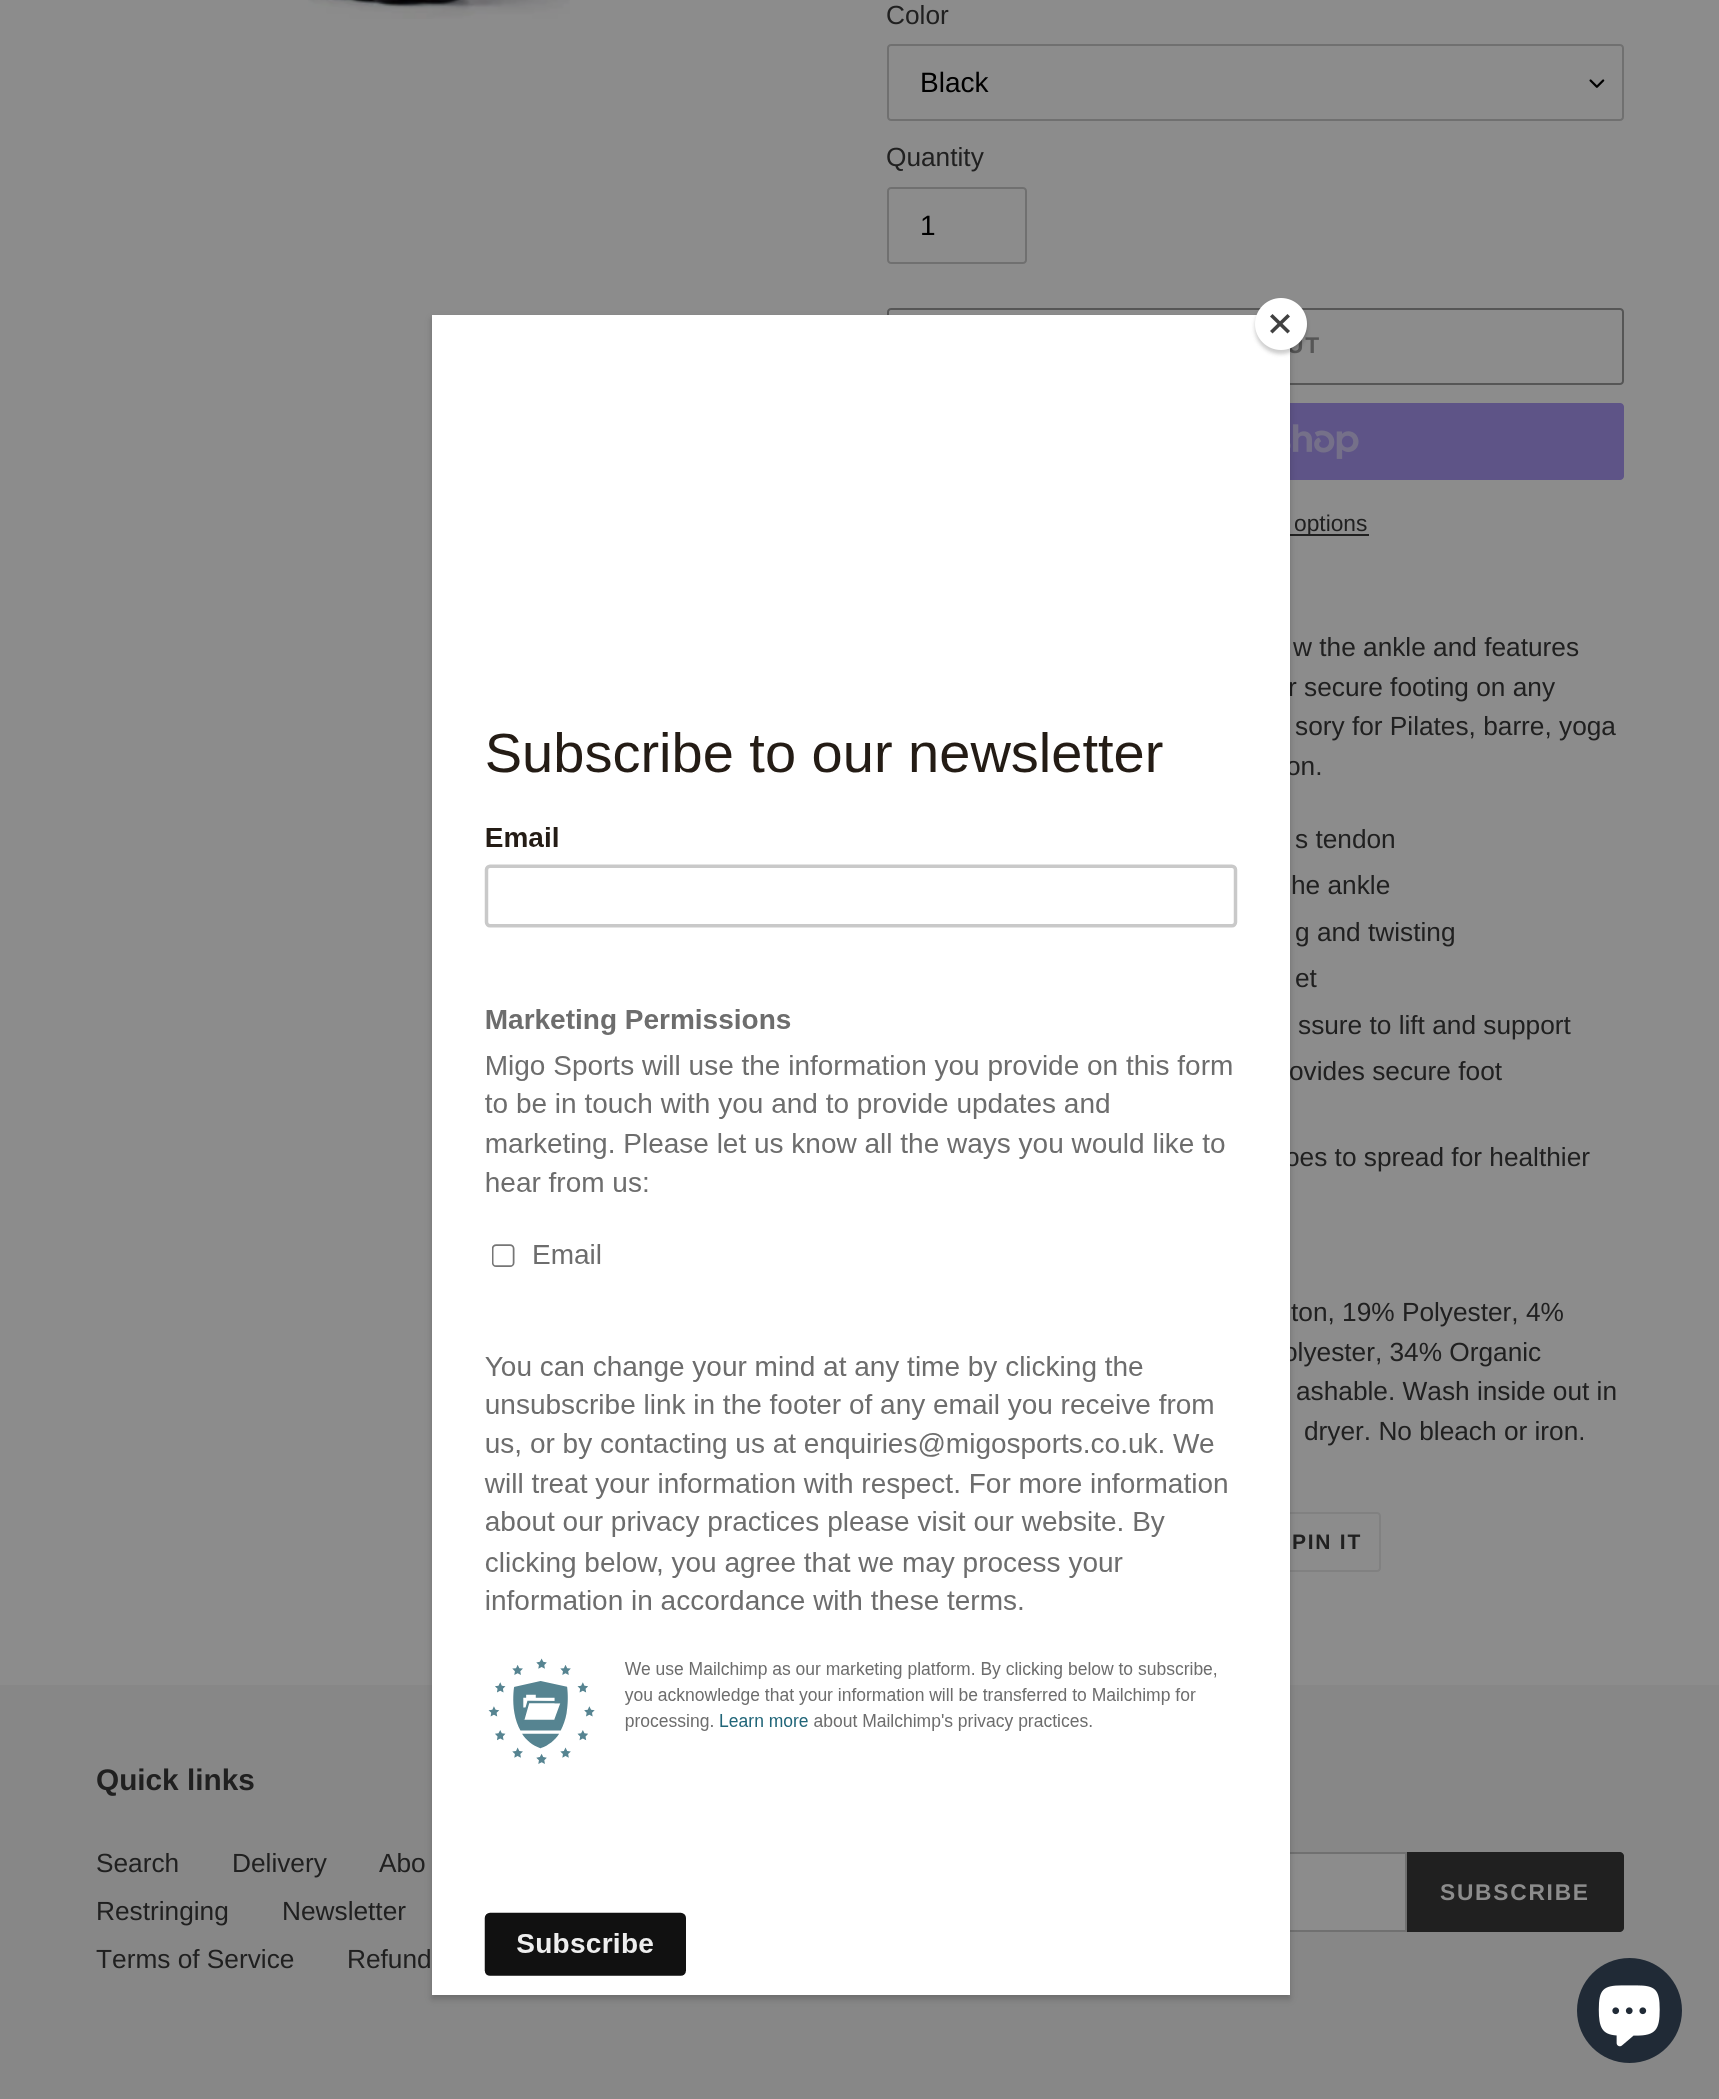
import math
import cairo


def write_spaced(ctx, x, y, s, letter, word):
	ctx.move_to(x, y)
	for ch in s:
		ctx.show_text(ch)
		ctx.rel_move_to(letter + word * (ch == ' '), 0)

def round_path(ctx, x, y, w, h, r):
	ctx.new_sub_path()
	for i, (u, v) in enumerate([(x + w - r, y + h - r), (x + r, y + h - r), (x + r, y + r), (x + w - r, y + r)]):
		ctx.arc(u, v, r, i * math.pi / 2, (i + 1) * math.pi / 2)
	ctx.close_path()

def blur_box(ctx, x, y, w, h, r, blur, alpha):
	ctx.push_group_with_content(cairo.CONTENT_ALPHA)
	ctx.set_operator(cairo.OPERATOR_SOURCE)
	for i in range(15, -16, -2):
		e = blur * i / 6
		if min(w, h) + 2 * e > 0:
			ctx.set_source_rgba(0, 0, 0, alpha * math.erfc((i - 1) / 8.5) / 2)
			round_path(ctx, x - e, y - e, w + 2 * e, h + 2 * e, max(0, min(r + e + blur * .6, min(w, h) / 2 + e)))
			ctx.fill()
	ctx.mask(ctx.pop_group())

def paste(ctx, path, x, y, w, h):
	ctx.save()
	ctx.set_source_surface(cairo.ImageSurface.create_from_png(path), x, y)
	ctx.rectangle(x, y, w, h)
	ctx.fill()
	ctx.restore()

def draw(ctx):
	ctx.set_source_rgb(0.549, 0.549, 0.549)
	ctx.paint()
	paste(ctx, 'media/1.png', 308, 0, 262, 19)
	ctx.select_font_face('Liberation Sans')
	ctx.set_font_size(26.25)
	ctx.set_source_rgb(0.125, 0.125, 0.125)
	ctx.move_to(886, 24)
	ctx.show_text('Color')
	paste(ctx, 'media/2.png', 1589, 79, 16, 9)
	round_path(ctx, 888, 45, 735, 75, 3)
	ctx.set_source_rgb(0.439, 0.439, 0.439)
	ctx.stroke()
	ctx.set_font_size(28)
	ctx.set_source_rgb(0, 0, 0)
	ctx.move_to(920, 92)
	ctx.show_text('Black')
	ctx.set_font_size(26.25)
	ctx.set_source_rgb(0.125, 0.125, 0.125)
	ctx.move_to(886, 166)
	ctx.show_text('Quantity')
	round_path(ctx, 888, 188, 138, 75, 3)
	ctx.set_source_rgb(0.439, 0.439, 0.439)
	ctx.stroke()
	ctx.set_font_size(28)
	ctx.set_source_rgb(0, 0, 0)
	ctx.move_to(920, 235)
	ctx.show_text('1')
	round_path(ctx, 888, 309, 735, 75, 3)
	ctx.set_source_rgb(0.337, 0.337, 0.337)
	ctx.stroke()
	ctx.select_font_face('Liberation Sans', cairo.FONT_SLANT_NORMAL, cairo.FONT_WEIGHT_BOLD)
	ctx.set_font_size(22.75)
	write_spaced(ctx, 1287, 353, 'UT', 1.75, 0)
	ctx.set_source_rgb(0.369, 0.329, 0.529)
	round_path(ctx, 887, 403, 737, 77, 4)
	ctx.fill()
	paste(ctx, 'media/3.png', 1290, 424, 69, 35)
	ctx.set_source_rgb(0.125, 0.125, 0.125)
	ctx.rectangle(1290, 534, 79, 2)
	ctx.fill()
	ctx.select_font_face('Liberation Sans')
	ctx.move_to(1294, 531)
	ctx.show_text('options')
	ctx.set_font_size(26.25)
	for x, y, s in [
		(1293, 656, 'w the ankle and features'),
		(1288, 696, 'r secure footing on any'),
		(1295, 735, 'sory for Pilates, barre, yoga'),
		(1286, 775, 'on.'),
		(1295, 848, 's tendon'),
		(1291, 894, 'he ankle'),
		(1295, 941, 'g and twisting'),
		(1295, 987, 'et'),
		(1298, 1034, 'ssure to lift and support'),
		(1289, 1080, 'ovides secure foot'),
		(1285, 1166, 'oes to spread for healthier'),
		(1291, 1321, 'ton, 19% Polyester, 4%'),
		(1283, 1361, 'olyester, 34% Organic'),
		(1296, 1400, 'ashable. Wash inside out in'),
		(1304, 1440, 'dryer. No bleach or iron.'),
	]:
		ctx.move_to(x, y)
		ctx.show_text(s)
	round_path(ctx, 1231, 1513, 149, 58, 3)
	ctx.set_source_rgb(0.506, 0.506, 0.506)
	ctx.stroke()
	ctx.select_font_face('Liberation Sans', cairo.FONT_SLANT_NORMAL, cairo.FONT_WEIGHT_BOLD)
	ctx.set_font_size(21)
	ctx.set_source_rgb(0.125, 0.125, 0.125)
	write_spaced(ctx, 1292, 1549, 'PIN IT', 1.75, 0)
	ctx.set_source_rgb(0.529, 0.529, 0.529)
	ctx.rectangle(0, 1685, 1719, 414)
	ctx.fill()
	ctx.set_font_size(29.75)
	ctx.set_source_rgb(0.125, 0.125, 0.125)
	ctx.move_to(96, 1790)
	ctx.show_text('Quick links')
	ctx.select_font_face('Liberation Sans')
	ctx.set_font_size(26.25)
	for x, y, s in [
		(96, 1872, 'Search'),
		(232, 1872, 'Delivery'),
		(379, 1872, 'Abo'),
		(96, 1920, 'Restringing'),
		(282, 1920, 'Newsletter'),
		(96, 1968, 'Terms of Service'),
		(347, 1968, 'Refund'),
	]:
		ctx.move_to(x, y)
		ctx.show_text(s)
	ctx.set_source_rgb(0.549, 0.549, 0.549)
	ctx.rectangle(1290, 1854, 115, 76)
	ctx.fill()
	ctx.rectangle(888, 1853, 518, 78)
	ctx.set_source_rgb(0.439, 0.439, 0.439)
	ctx.stroke()
	ctx.set_source_rgb(0.125, 0.125, 0.125)
	ctx.new_path()
	ctx.move_to(1407, 1852)
	ctx.line_to(1620, 1852)
	ctx.curve_to(1622, 1852, 1624, 1854, 1624, 1856)
	ctx.line_to(1624, 1928)
	ctx.curve_to(1624, 1930, 1622, 1932, 1620, 1932)
	ctx.line_to(1407, 1932)
	ctx.close_path()
	ctx.fill()
	ctx.select_font_face('Liberation Sans', cairo.FONT_SLANT_NORMAL, cairo.FONT_WEIGHT_BOLD)
	ctx.set_font_size(22.75)
	ctx.set_source_rgb(0.549, 0.549, 0.549)
	write_spaced(ctx, 1440, 1900, 'SUBSCRIBE', 1.75, 0)
	ctx.set_source_rgb(0, 0, 0)
	blur_box(ctx, 432, 319, 858, 1680, 0, 3.5, 0.2)
	paste(ctx, 'media/4.png', 432, 315, 858, 1680)
	blur_box(ctx, 1255, 301, 52, 53, 26, 2, 0.2)
	ctx.set_source_rgb(1, 1, 1)
	ctx.arc(1281, 324, 26, 0, 2 * math.pi)
	ctx.fill()
	ctx.set_source_rgb(0.255, 0.255, 0.255)
	ctx.new_path()
	ctx.move_to(1287.5, 314)
	ctx.line_to(1290, 316.5)
	ctx.line_to(1272.5, 333.5)
	ctx.line_to(1270, 331)
	ctx.close_path()
	ctx.fill()
	ctx.new_path()
	ctx.move_to(1270, 316.5)
	ctx.line_to(1272.5, 314)
	ctx.line_to(1290, 331)
	ctx.line_to(1287.5, 333.5)
	ctx.close_path()
	ctx.fill()
	ctx.set_source_rgb(0.125, 0.165, 0.212)
	ctx.arc(1629.5, 2010.5, 52.5, 0, 2 * math.pi)
	ctx.fill()
	paste(ctx, 'media/5.png', 1598, 1985, 62, 62)


surface = cairo.ImageSurface(cairo.FORMAT_RGB24, 1719, 2099)
ctx = cairo.Context(surface)
options = cairo.FontOptions()
options.set_hint_metrics(cairo.HINT_METRICS_OFF)
options.set_hint_style(cairo.HINT_STYLE_NONE)
ctx.set_font_options(options)
ctx.set_miter_limit(4)
draw(ctx)
surface.write_to_png('image.png')
